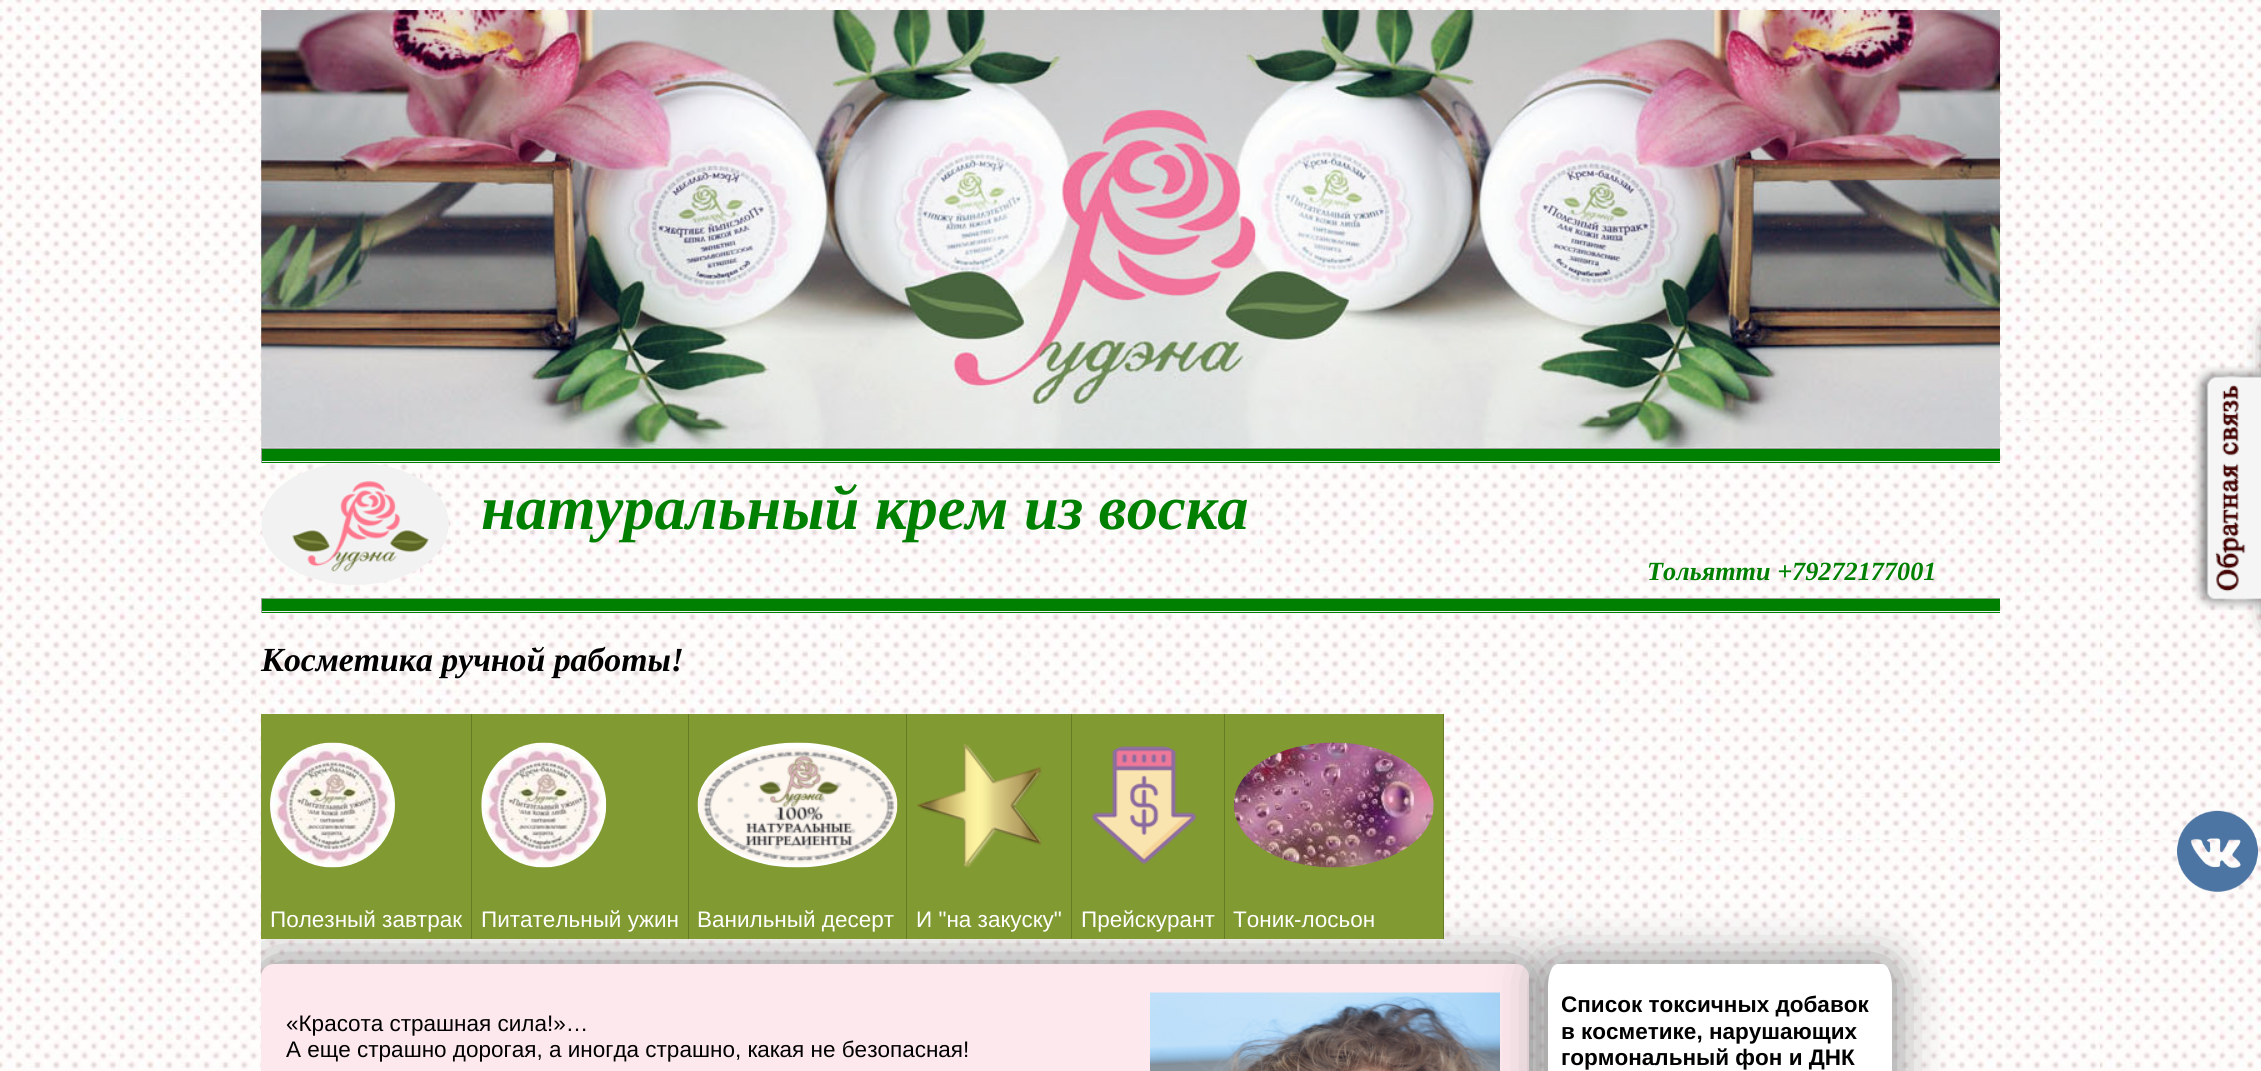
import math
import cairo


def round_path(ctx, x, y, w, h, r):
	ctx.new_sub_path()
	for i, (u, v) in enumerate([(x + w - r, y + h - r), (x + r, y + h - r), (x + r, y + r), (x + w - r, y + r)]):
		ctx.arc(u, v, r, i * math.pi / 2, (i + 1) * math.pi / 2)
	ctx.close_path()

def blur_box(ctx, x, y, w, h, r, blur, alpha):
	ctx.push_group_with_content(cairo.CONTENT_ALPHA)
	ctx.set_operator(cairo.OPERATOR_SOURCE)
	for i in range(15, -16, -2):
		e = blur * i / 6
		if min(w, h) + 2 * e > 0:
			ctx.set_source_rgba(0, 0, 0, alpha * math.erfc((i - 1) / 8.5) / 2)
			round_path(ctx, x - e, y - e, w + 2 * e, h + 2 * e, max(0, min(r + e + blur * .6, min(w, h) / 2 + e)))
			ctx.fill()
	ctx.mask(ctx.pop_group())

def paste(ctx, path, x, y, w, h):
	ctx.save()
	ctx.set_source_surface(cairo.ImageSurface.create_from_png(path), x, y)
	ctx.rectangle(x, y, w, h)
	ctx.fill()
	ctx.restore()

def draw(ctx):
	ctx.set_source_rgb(1, 1, 1)
	ctx.paint()
	paste(ctx, 'media/1.png', 0, 0, 2261, 1071)
	ctx.set_source_rgb(0, 0, 0)
	blur_box(ctx, 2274, 321, 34, 305, 9, 12.5, 1)
	paste(ctx, 'media/2.png', 261, 10, 1739, 438)
	paste(ctx, 'media/3.png', 261, 10, 1739, 438)
	ctx.set_source_rgb(0, 0.502, 0)
	ctx.rectangle(262, 449, 1738, 14)
	ctx.fill()
	ctx.set_source_rgb(0.624, 0.624, 0.624)
	ctx.rectangle(261, 448, 1739, 1)
	ctx.fill()
	ctx.set_source_rgb(0.933, 0.933, 0.933)
	ctx.rectangle(261, 461, 1739, 1)
	ctx.fill()
	ctx.set_source_rgb(0.624, 0.624, 0.624)
	ctx.rectangle(261, 448, 1, 15)
	ctx.fill()
	paste(ctx, 'media/4.png', 261, 463, 188, 122)
	paste(ctx, 'media/5.png', 262, 465, 187, 107)
	ctx.select_font_face('Liberation Serif', cairo.FONT_SLANT_ITALIC, cairo.FONT_WEIGHT_BOLD)
	ctx.set_font_size(62.5)
	ctx.set_source_rgb(0, 0.502, 0)
	ctx.move_to(481, 529)
	ctx.show_text('натуральный крем из воска')
	ctx.set_font_size(26.25)
	ctx.move_to(1647, 580)
	ctx.show_text('Тольятти +79272177001')
	ctx.rectangle(262, 599, 1738, 14)
	ctx.fill()
	ctx.set_source_rgb(0.624, 0.624, 0.624)
	ctx.rectangle(261, 598, 1739, 1)
	ctx.fill()
	ctx.set_source_rgb(0.933, 0.933, 0.933)
	ctx.rectangle(261, 611, 1739, 1)
	ctx.fill()
	ctx.set_source_rgb(0.624, 0.624, 0.624)
	ctx.rectangle(261, 598, 1, 15)
	ctx.fill()
	paste(ctx, 'media/6.png', 2192, 366, 69, 244)
	ctx.set_font_size(33.75)
	ctx.set_source_rgb(0, 0, 0)
	ctx.move_to(261, 671)
	ctx.show_text('Косметика ручной работы!')
	ctx.save()
	ctx.rectangle(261, 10, 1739, 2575)
	ctx.clip()
	ctx.set_source_rgb(0.502, 0.502, 0.502)
	blur_box(ctx, 261, 964, 1268, 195, 13, 25, 1)
	ctx.restore()
	ctx.set_source_rgb(0.506, 0.604, 0.196)
	ctx.rectangle(261, 714, 427, 225)
	ctx.fill()
	ctx.set_source_rgb(0.404, 0.482, 0.153)
	ctx.rectangle(471, 714, 1, 225)
	ctx.fill()
	paste(ctx, 'media/7.png', 270, 742, 125, 126)
	ctx.select_font_face('Liberation Sans')
	ctx.set_font_size(22.5)
	ctx.set_source_rgb(1, 1, 1)
	ctx.move_to(270, 927)
	ctx.show_text('Полезный завтрак')
	ctx.set_source_rgb(0.404, 0.482, 0.153)
	ctx.rectangle(688, 714, 1, 225)
	ctx.fill()
	paste(ctx, 'media/8.png', 481, 742, 126, 126)
	ctx.set_source_rgb(1, 1, 1)
	ctx.move_to(481, 927)
	ctx.show_text('Питательный ужин')
	ctx.set_source_rgb(0.506, 0.604, 0.196)
	ctx.rectangle(689, 714, 535, 225)
	ctx.fill()
	ctx.set_source_rgb(0.404, 0.482, 0.153)
	ctx.rectangle(906, 714, 1, 225)
	ctx.fill()
	paste(ctx, 'media/9.png', 697, 742, 201, 126)
	ctx.set_source_rgb(1, 1, 1)
	ctx.move_to(697, 927)
	ctx.show_text('Ванильный десерт')
	ctx.set_source_rgb(0.404, 0.482, 0.153)
	ctx.rectangle(1071, 714, 1, 225)
	ctx.fill()
	paste(ctx, 'media/10.png', 917, 743, 125, 125)
	ctx.set_source_rgb(1, 1, 1)
	ctx.move_to(916, 927)
	ctx.show_text('И "на закуску"')
	ctx.set_source_rgb(0.404, 0.482, 0.153)
	ctx.rectangle(1224, 714, 1, 225)
	ctx.fill()
	paste(ctx, 'media/11.png', 1092, 746, 105, 118)
	ctx.set_source_rgb(1, 1, 1)
	ctx.move_to(1081, 927)
	ctx.show_text('Прейскурант')
	ctx.set_source_rgb(0.506, 0.604, 0.196)
	ctx.rectangle(1225, 714, 218, 225)
	ctx.fill()
	ctx.set_source_rgb(0.404, 0.482, 0.153)
	ctx.rectangle(1443, 714, 1, 225)
	ctx.fill()
	paste(ctx, 'media/12.png', 1233, 742, 201, 126)
	ctx.set_source_rgb(1, 1, 1)
	ctx.move_to(1233, 927)
	ctx.show_text('Тоник-лосьон')
	ctx.set_source_rgb(0.992, 0.91, 0.929)
	round_path(ctx, 261, 964, 1268, 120, 13)
	ctx.fill()
	ctx.set_source_rgb(0, 0, 0)
	ctx.move_to(286, 1031)
	ctx.show_text('«Красота страшная сила!»…')
	ctx.move_to(286, 1057)
	ctx.show_text('А еще страшно дорогая, а иногда страшно, какая не безопасная!')
	paste(ctx, 'media/13.png', 1150, 992, 350, 79)
	ctx.set_source_rgb(0.502, 0.502, 0.502)
	blur_box(ctx, 1548, 964, 345, 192, 10, 25, 1)
	ctx.set_source_rgb(1, 1, 1)
	ctx.new_path()
	ctx.move_to(1558, 964)
	ctx.line_to(1882, 964)
	ctx.curve_to(1888, 964, 1892, 974, 1892, 987)
	ctx.line_to(1892, 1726)
	ctx.curve_to(1892, 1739, 1888, 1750, 1882, 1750)
	ctx.line_to(1558, 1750)
	ctx.curve_to(1552, 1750, 1548, 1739, 1548, 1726)
	ctx.line_to(1548, 987)
	ctx.curve_to(1548, 974, 1552, 964, 1558, 964)
	ctx.close_path()
	ctx.fill()
	ctx.select_font_face('Liberation Sans', cairo.FONT_SLANT_NORMAL, cairo.FONT_WEIGHT_BOLD)
	ctx.set_source_rgb(0, 0, 0)
	for x, y, s in [
		(1561, 1012, 'Список токсичных добавок'),
		(1561, 1039, 'в косметике, нарушающих'),
		(1561, 1065, 'гормональный фон и ДНК'),
	]:
		ctx.move_to(x, y)
		ctx.show_text(s)
	paste(ctx, 'media/14.png', 2176, 810, 83, 83)


surface = cairo.ImageSurface(cairo.FORMAT_RGB24, 2261, 1071)
ctx = cairo.Context(surface)
options = cairo.FontOptions()
options.set_hint_metrics(cairo.HINT_METRICS_OFF)
options.set_hint_style(cairo.HINT_STYLE_NONE)
ctx.set_font_options(options)
ctx.set_miter_limit(4)
draw(ctx)
surface.write_to_png('image.png')
